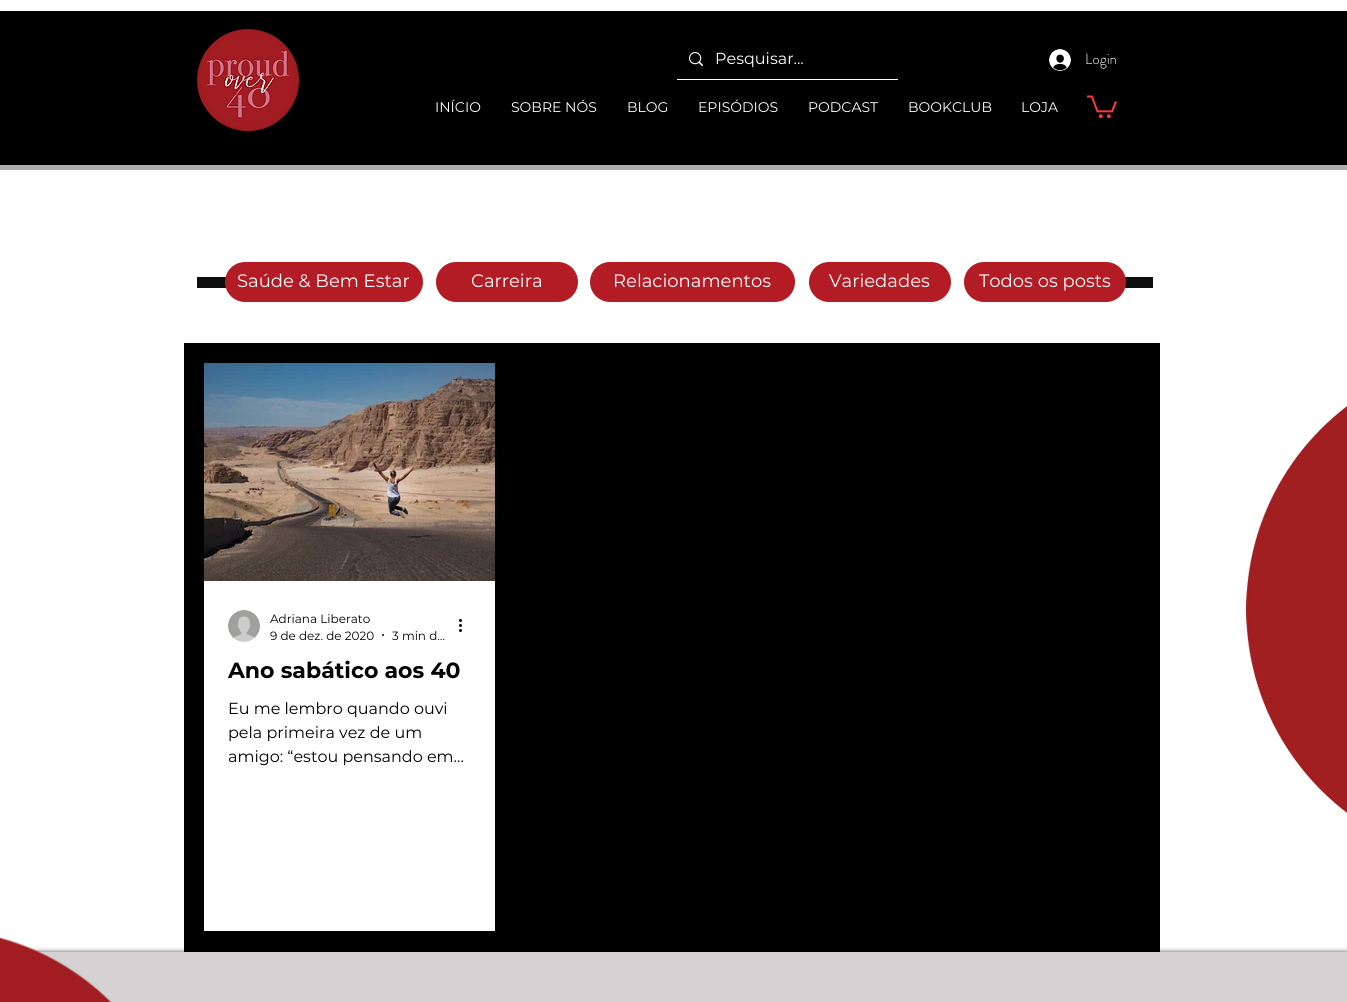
import math
import cairo


def round_path(ctx, x, y, w, h, r):
	ctx.new_sub_path()
	for i, (u, v) in enumerate([(x + w - r, y + h - r), (x + r, y + h - r), (x + r, y + r), (x + w - r, y + r)]):
		ctx.arc(u, v, r, i * math.pi / 2, (i + 1) * math.pi / 2)
	ctx.close_path()

def blur_box(ctx, x, y, w, h, r, blur, alpha):
	ctx.push_group_with_content(cairo.CONTENT_ALPHA)
	ctx.set_operator(cairo.OPERATOR_SOURCE)
	for i in range(15, -16, -2):
		e = blur * i / 6
		if min(w, h) + 2 * e > 0:
			ctx.set_source_rgba(0, 0, 0, alpha * math.erfc((i - 1) / 8.5) / 2)
			round_path(ctx, x - e, y - e, w + 2 * e, h + 2 * e, max(0, min(r + e + blur * .6, min(w, h) / 2 + e)))
			ctx.fill()
	ctx.mask(ctx.pop_group())

def paste(ctx, path, x, y, w, h):
	ctx.save()
	ctx.set_source_surface(cairo.ImageSurface.create_from_png(path), x, y)
	ctx.rectangle(x, y, w, h)
	ctx.fill()
	ctx.restore()

def draw(ctx):
	ctx.set_source_rgb(1, 1, 1)
	ctx.paint()
	ctx.set_source_rgb(0, 0, 0)
	ctx.rectangle(0, 11, 1347, 154)
	ctx.fill()
	ctx.set_source_rgb(0.678, 0.678, 0.678)
	ctx.rectangle(0, 165, 1347, 5)
	ctx.fill()
	paste(ctx, 'media/1.png', 197, 29, 102, 102)
	ctx.set_source_rgb(1, 1, 1)
	ctx.rectangle(677, 79, 221, 1)
	ctx.fill()
	paste(ctx, 'media/2.png', 689, 52, 14, 14)
	ctx.select_font_face('Montserrat')
	ctx.set_font_size(16)
	ctx.move_to(715, 64)
	ctx.show_text('Pesquisar...')
	paste(ctx, 'media/3.png', 1049, 49, 22, 22)
	ctx.select_font_face('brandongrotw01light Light')
	ctx.set_font_size(15)
	ctx.move_to(1085, 64)
	ctx.show_text('Login')
	ctx.select_font_face('Montserrat')
	ctx.set_font_size(14)
	for x, y, s in [
		(435, 112, 'INÍCIO'),
		(511, 112, 'SOBRE NÓS'),
		(627, 112, 'BLOG'),
		(698, 112, 'EPISÓDIOS'),
		(808, 112, 'PODCAST'),
		(908, 112, 'BOOKCLUB'),
		(1021, 112, 'LOJA'),
	]:
		ctx.move_to(x, y)
		ctx.show_text(s)
	paste(ctx, 'media/4.png', 1087, 95, 30, 24)
	ctx.set_source_rgb(0.055, 0.055, 0.055)
	ctx.rectangle(197, 277, 29, 11)
	ctx.fill()
	ctx.set_source_rgb(0.702, 0.106, 0.145)
	round_path(ctx, 226.5, 263.5, 195, 37, 18.5)
	ctx.fill_preserve()
	ctx.set_line_width(3)
	ctx.stroke()
	ctx.set_font_size(18)
	ctx.set_source_rgb(1, 1, 1)
	ctx.move_to(237, 287)
	ctx.show_text('Saúde & Bem Estar')
	ctx.set_source_rgb(0.702, 0.106, 0.145)
	round_path(ctx, 437.5, 263.5, 139, 37, 18.5)
	ctx.fill_preserve()
	ctx.stroke()
	ctx.set_source_rgb(1, 1, 1)
	ctx.move_to(471, 287)
	ctx.show_text('Carreira')
	ctx.set_source_rgb(0.702, 0.106, 0.145)
	round_path(ctx, 591.5, 263.5, 202, 37, 18.5)
	ctx.fill_preserve()
	ctx.stroke()
	ctx.set_source_rgb(1, 1, 1)
	ctx.move_to(613, 287)
	ctx.show_text('Relacionamentos')
	ctx.set_source_rgb(0.702, 0.106, 0.145)
	round_path(ctx, 810.5, 263.5, 139, 37, 18.5)
	ctx.fill_preserve()
	ctx.stroke()
	ctx.set_source_rgb(1, 1, 1)
	ctx.move_to(829, 287)
	ctx.show_text('Variedades')
	ctx.set_source_rgb(0.055, 0.055, 0.055)
	ctx.rectangle(1125, 277, 28, 11)
	ctx.fill()
	ctx.set_source_rgb(0.702, 0.106, 0.145)
	round_path(ctx, 965.5, 263.5, 159, 37, 18.5)
	ctx.fill_preserve()
	ctx.stroke()
	ctx.set_source_rgb(1, 1, 1)
	ctx.move_to(979, 287)
	ctx.show_text('Todos os posts')
	ctx.set_source_rgb(0, 0, 0)
	ctx.rectangle(184, 343, 976, 609)
	ctx.fill()
	paste(ctx, 'media/5.png', 204, 363, 291, 218)
	ctx.set_source_rgb(1, 1, 1)
	ctx.rectangle(204, 581, 291, 350)
	ctx.fill()
	paste(ctx, 'media/6.png', 228, 610, 32, 32)
	ctx.set_font_size(12)
	ctx.set_source_rgb(0, 0, 0)
	ctx.move_to(270, 623)
	ctx.show_text('Adriana Liberato')
	ctx.move_to(270, 640)
	ctx.show_text('9 de dez. de 2020')
	ctx.new_path()
	ctx.arc(383, 635, 1, 0, 2 * math.pi)
	ctx.fill()
	ctx.move_to(392, 640)
	ctx.show_text('3 min d…')
	paste(ctx, 'media/7.png', 459, 619, 3, 13)
	ctx.select_font_face('Montserrat', cairo.FONT_SLANT_NORMAL, cairo.FONT_WEIGHT_BOLD)
	ctx.set_font_size(22)
	ctx.move_to(228, 678)
	ctx.show_text('Ano sabático aos 40')
	ctx.select_font_face('Montserrat')
	ctx.set_font_size(16)
	for x, y, s in [
		(228, 714, 'Eu me lembro quando ouvi'),
		(228, 738, 'pela primeira vez de um'),
		(228, 762, 'amigo: “estou pensando em…'),
	]:
		ctx.move_to(x, y)
		ctx.show_text(s)
	paste(ctx, 'media/8.png', 1246, 406, 101, 407)
	ctx.set_source_rgb(0, 0, 0)
	blur_box(ctx, 0, 952, 1347, 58, 0, 2.5, 0.7)
	ctx.set_source_rgb(0.831, 0.824, 0.824)
	ctx.rectangle(37, 952, 1310, 50)
	ctx.fill()
	paste(ctx, 'media/9.png', 0, 937, 112, 65)


surface = cairo.ImageSurface(cairo.FORMAT_RGB24, 1347, 1002)
ctx = cairo.Context(surface)
options = cairo.FontOptions()
options.set_hint_metrics(cairo.HINT_METRICS_OFF)
options.set_hint_style(cairo.HINT_STYLE_NONE)
ctx.set_font_options(options)
ctx.set_miter_limit(4)
draw(ctx)
surface.write_to_png('image.png')
